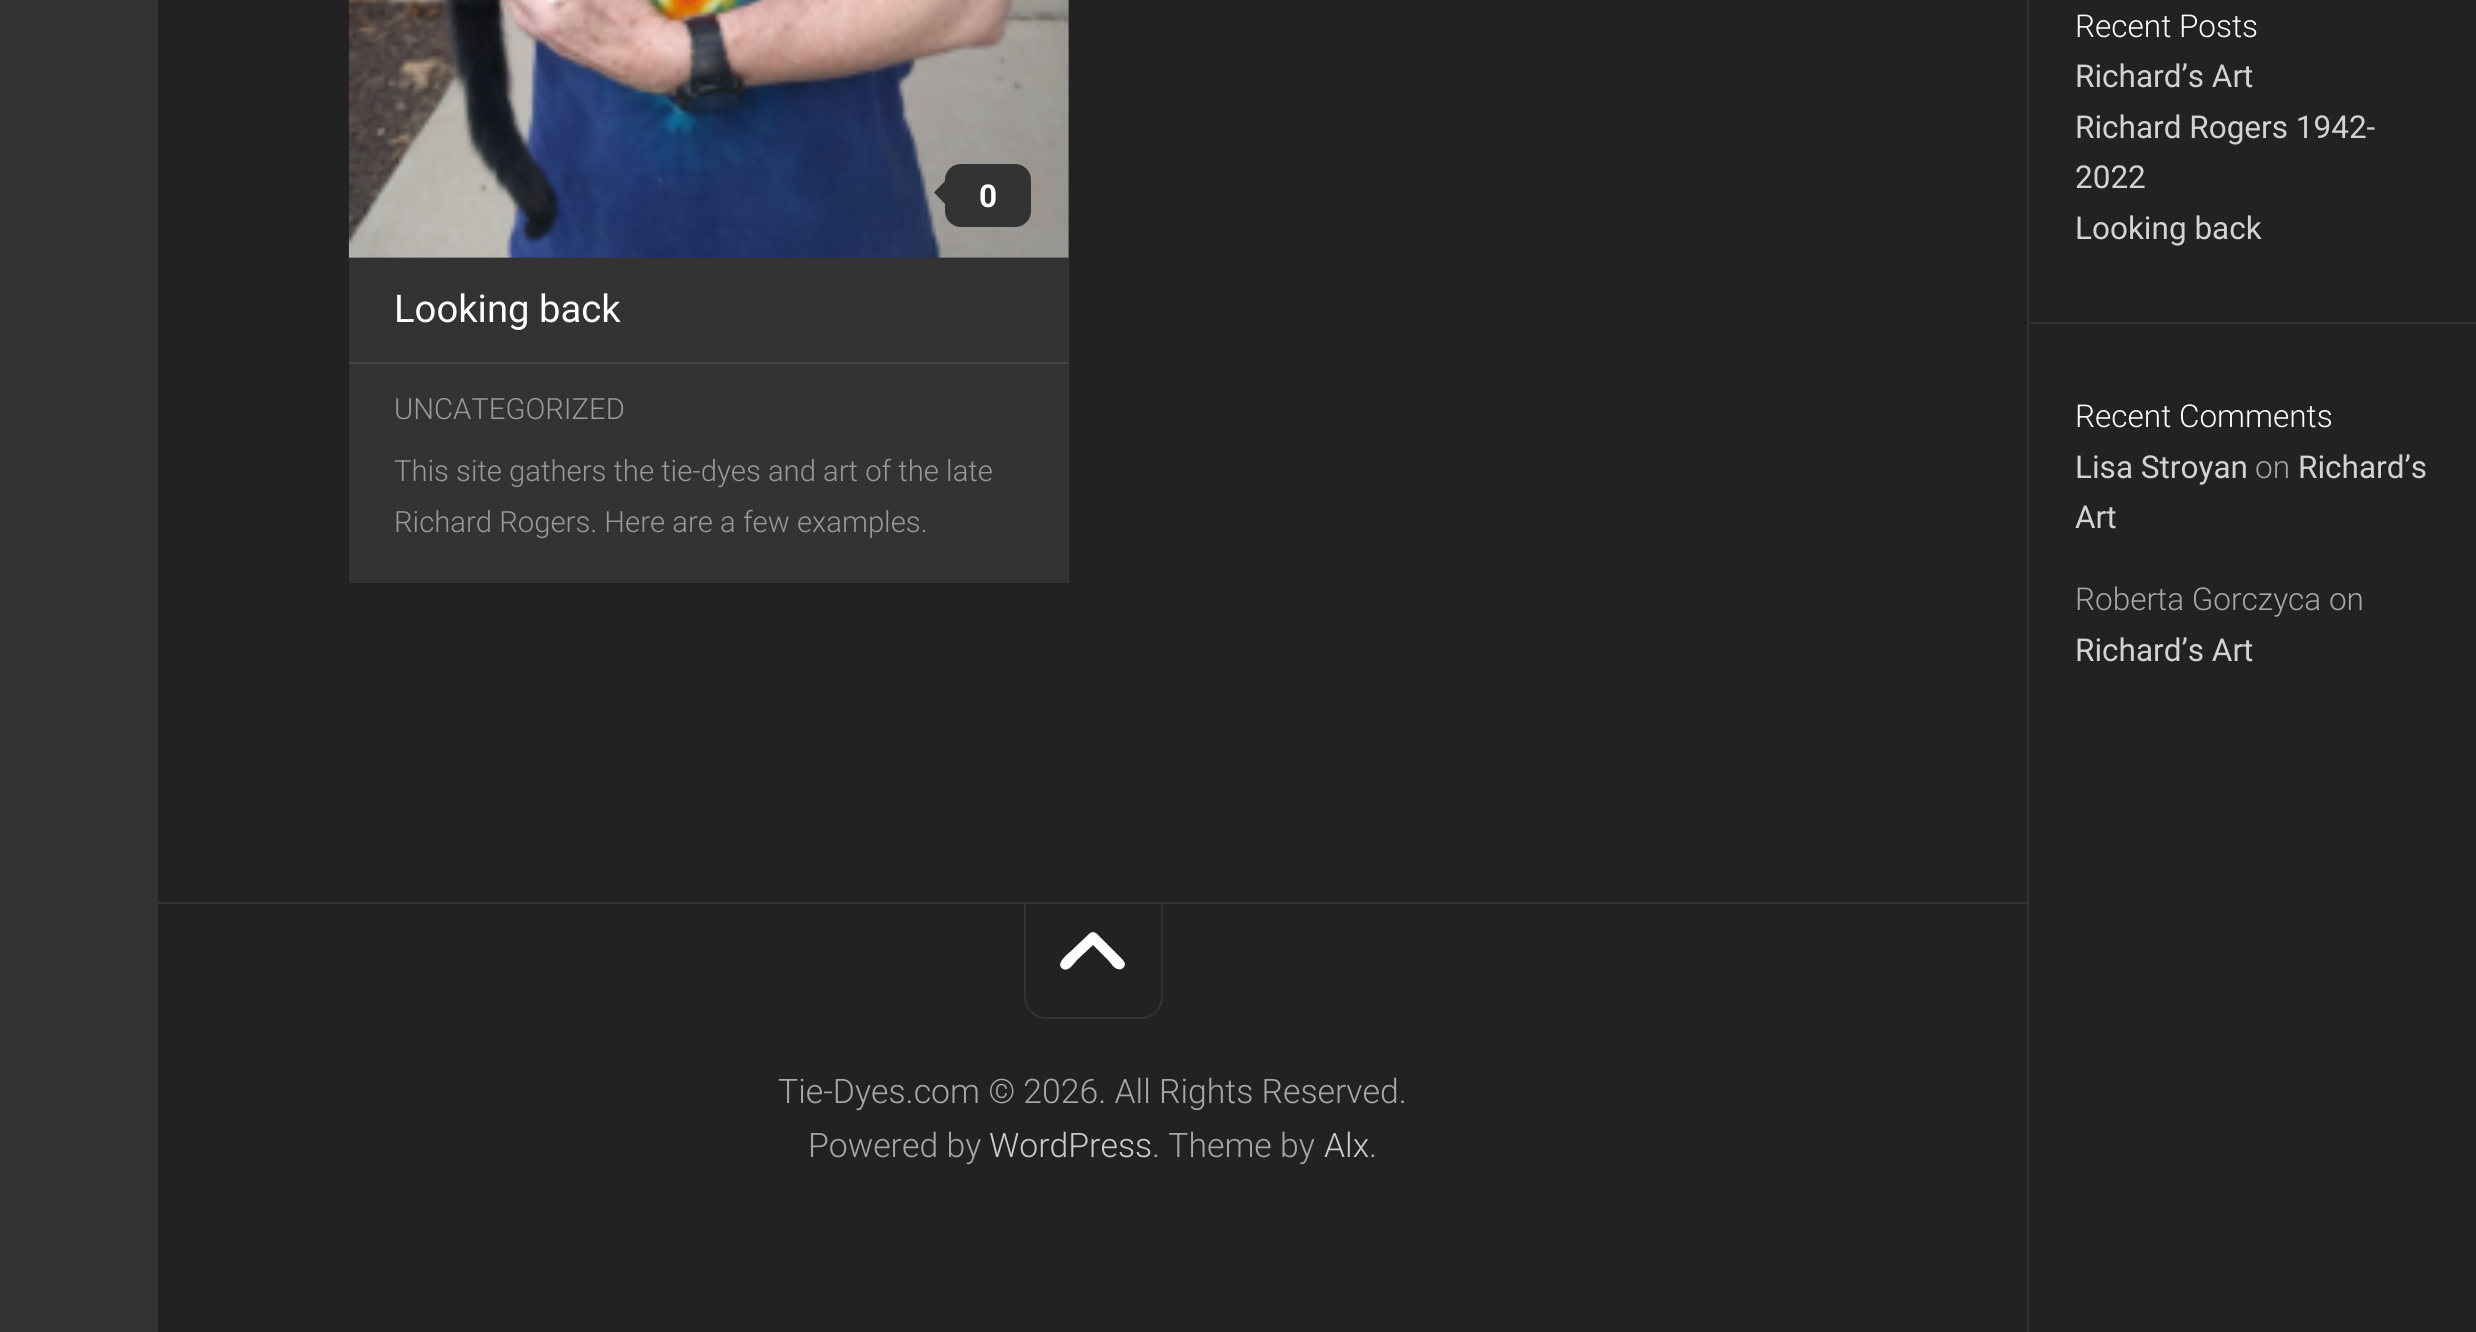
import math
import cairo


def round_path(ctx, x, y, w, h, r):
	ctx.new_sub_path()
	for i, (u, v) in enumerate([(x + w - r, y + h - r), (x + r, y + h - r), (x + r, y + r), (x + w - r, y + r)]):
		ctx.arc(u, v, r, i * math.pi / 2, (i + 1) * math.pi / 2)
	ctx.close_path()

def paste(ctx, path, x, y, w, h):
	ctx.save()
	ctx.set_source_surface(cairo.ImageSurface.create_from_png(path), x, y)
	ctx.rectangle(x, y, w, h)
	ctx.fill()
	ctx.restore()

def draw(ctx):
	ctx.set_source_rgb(0.133, 0.133, 0.133)
	ctx.paint()
	ctx.set_source_rgb(0.2, 0.2, 0.2)
	ctx.rectangle(0, 0, 158, 1332)
	ctx.fill()
	ctx.rectangle(349, 0, 720, 583)
	ctx.fill()
	paste(ctx, 'media/1.png', 348, 0, 721, 258)
	round_path(ctx, 945, 164, 86, 63, 16)
	ctx.fill()
	ctx.new_path()
	ctx.move_to(947, 179)
	ctx.line_to(947, 206)
	ctx.line_to(934, 192.5)
	ctx.close_path()
	ctx.fill()
	ctx.select_font_face('Roboto', cairo.FONT_SLANT_NORMAL, cairo.FONT_WEIGHT_BOLD)
	ctx.set_font_size(31.5)
	ctx.set_source_rgb(1, 1, 1)
	ctx.move_to(979, 207)
	ctx.show_text('0')
	ctx.select_font_face('Roboto')
	ctx.set_font_size(38.25)
	ctx.move_to(394, 322)
	ctx.show_text('Looking back')
	ctx.set_source_rgb(0.263, 0.263, 0.263)
	ctx.rectangle(349, 362, 720, 2)
	ctx.fill()
	ctx.select_font_face('Roboto Light')
	ctx.set_font_size(29.25)
	ctx.set_source_rgb(0.6, 0.6, 0.6)
	for x, y, s in [
		(394, 419, 'UNCATEGORIZED'),
		(394, 481, 'This site gathers the tie-dyes and art of the late'),
		(394, 532, 'Richard Rogers. Here are a few examples.'),
	]:
		ctx.move_to(x, y)
		ctx.show_text(s)
	ctx.set_source_rgb(0.2, 0.2, 0.2)
	ctx.rectangle(158, 902, 1869, 2)
	ctx.fill()
	ctx.set_fill_rule(cairo.FILL_RULE_EVEN_ODD)
	ctx.new_path()
	ctx.move_to(1024, 904)
	ctx.line_to(1163, 904)
	ctx.line_to(1163, 997)
	ctx.curve_to(1163, 1009, 1153, 1019, 1141, 1019)
	ctx.line_to(1046, 1019)
	ctx.curve_to(1034, 1019, 1024, 1009, 1024, 997)
	ctx.close_path()
	ctx.move_to(1026, 904)
	ctx.line_to(1161, 904)
	ctx.line_to(1161, 997)
	ctx.curve_to(1161, 1008, 1152, 1017, 1141, 1017)
	ctx.line_to(1046, 1017)
	ctx.curve_to(1035, 1017, 1026, 1008, 1026, 997)
	ctx.close_path()
	ctx.fill()
	ctx.set_source_rgb(1, 1, 1)
	ctx.set_fill_rule(cairo.FILL_RULE_WINDING)
	ctx.new_path()
	ctx.move_to(1089, 934)
	ctx.curve_to(1094, 929, 1098, 935, 1101, 938)
	ctx.line_to(1119, 956)
	ctx.curve_to(1122, 959, 1128, 964, 1123, 968)
	ctx.curve_to(1122, 969, 1120, 970, 1118, 969)
	ctx.curve_to(1114, 969, 1111, 963, 1108, 960)
	ctx.line_to(1093, 945)
	ctx.line_to(1077, 960)
	ctx.curve_to(1074, 963, 1069, 972, 1063, 969)
	ctx.curve_to(1054, 964, 1069, 953, 1071, 951)
	ctx.close_path()
	ctx.fill()
	ctx.set_font_size(33.75)
	ctx.set_source_rgb(0.655, 0.655, 0.655)
	ctx.move_to(778, 1103)
	ctx.show_text('Tie-Dyes.com © 2026. All Rights Reserved.')
	ctx.move_to(808, 1157)
	ctx.show_text('Powered by')
	ctx.set_source_rgb(0.8, 0.8, 0.8)
	ctx.move_to(989, 1157)
	ctx.show_text('WordPress')
	ctx.set_source_rgb(0.655, 0.655, 0.655)
	ctx.move_to(1152, 1157)
	ctx.show_text('. Theme by')
	ctx.set_source_rgb(0.8, 0.8, 0.8)
	ctx.move_to(1324, 1157)
	ctx.show_text('Alx')
	ctx.set_source_rgb(0.655, 0.655, 0.655)
	ctx.move_to(1369, 1157)
	ctx.show_text('.')
	ctx.set_source_rgb(0.2, 0.2, 0.2)
	ctx.rectangle(2027, 0, 2, 1332)
	ctx.fill()
	ctx.set_font_size(31.5)
	ctx.set_source_rgb(1, 1, 1)
	ctx.move_to(2075, 37)
	ctx.show_text('Recent Posts')
	ctx.select_font_face('Roboto')
	ctx.set_source_rgb(0.827, 0.827, 0.827)
	for x, y, s in [
		(2075, 87, 'Richard’s Art'),
		(2075, 138, 'Richard Rogers 1942-'),
		(2075, 188, '2022'),
		(2075, 239, 'Looking back'),
	]:
		ctx.move_to(x, y)
		ctx.show_text(s)
	ctx.set_source_rgb(0.204, 0.204, 0.204)
	ctx.rectangle(2030, 322, 446, 2)
	ctx.fill()
	ctx.select_font_face('Roboto Light')
	ctx.set_source_rgb(1, 1, 1)
	ctx.move_to(2075, 427)
	ctx.show_text('Recent Comments')
	ctx.select_font_face('Roboto')
	ctx.set_source_rgb(0.827, 0.827, 0.827)
	ctx.move_to(2075, 478)
	ctx.show_text('Lisa Stroyan')
	ctx.select_font_face('Roboto Light')
	ctx.set_source_rgb(0.655, 0.655, 0.655)
	ctx.move_to(2255, 478)
	ctx.show_text('on')
	ctx.select_font_face('Roboto')
	ctx.set_source_rgb(0.827, 0.827, 0.827)
	ctx.move_to(2298, 478)
	ctx.show_text('Richard’s')
	ctx.move_to(2075, 528)
	ctx.show_text('Art')
	ctx.select_font_face('Roboto Light')
	ctx.set_source_rgb(0.655, 0.655, 0.655)
	ctx.move_to(2075, 610)
	ctx.show_text('Roberta Gorczyca on')
	ctx.select_font_face('Roboto')
	ctx.set_source_rgb(0.827, 0.827, 0.827)
	ctx.move_to(2075, 661)
	ctx.show_text('Richard’s Art')


surface = cairo.ImageSurface(cairo.FORMAT_RGB24, 2476, 1332)
ctx = cairo.Context(surface)
options = cairo.FontOptions()
options.set_hint_metrics(cairo.HINT_METRICS_OFF)
options.set_hint_style(cairo.HINT_STYLE_NONE)
ctx.set_font_options(options)
ctx.set_miter_limit(4)
draw(ctx)
surface.write_to_png('image.png')
